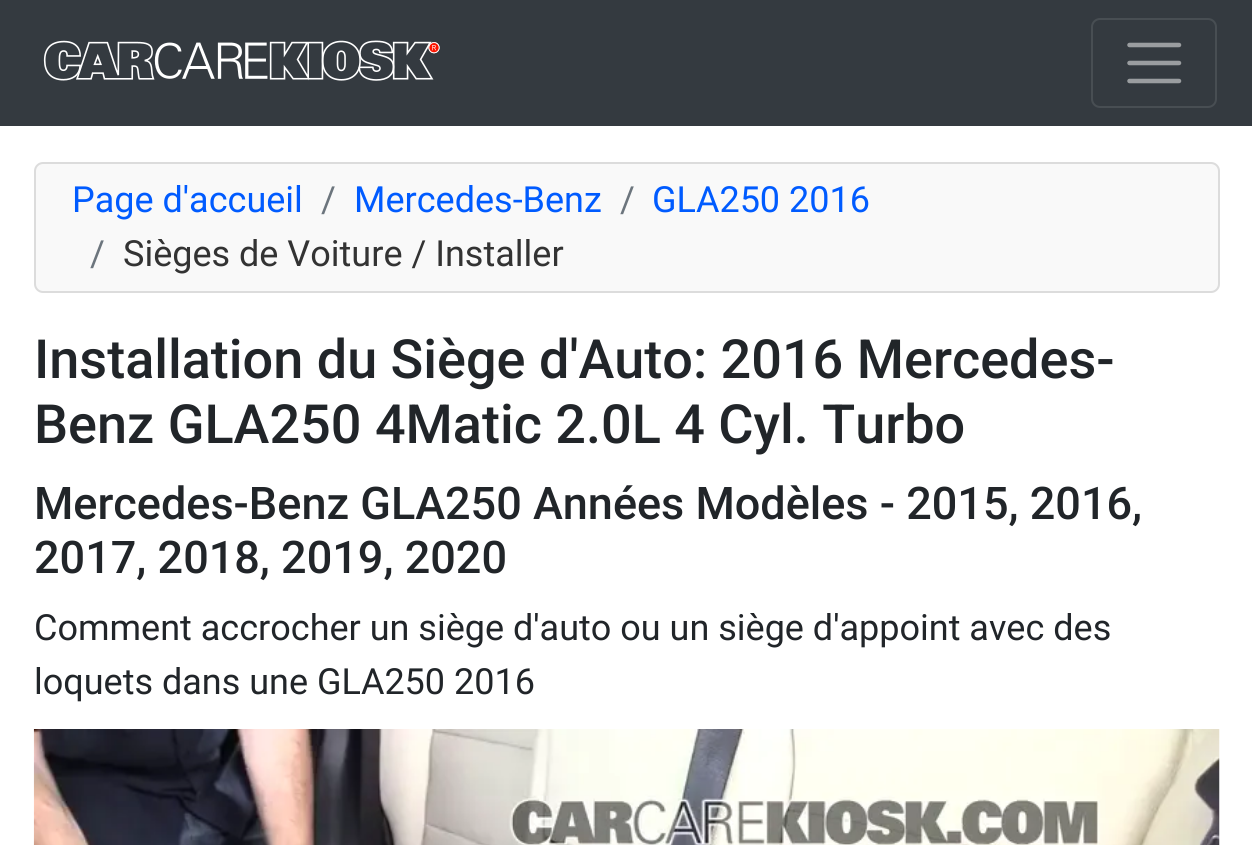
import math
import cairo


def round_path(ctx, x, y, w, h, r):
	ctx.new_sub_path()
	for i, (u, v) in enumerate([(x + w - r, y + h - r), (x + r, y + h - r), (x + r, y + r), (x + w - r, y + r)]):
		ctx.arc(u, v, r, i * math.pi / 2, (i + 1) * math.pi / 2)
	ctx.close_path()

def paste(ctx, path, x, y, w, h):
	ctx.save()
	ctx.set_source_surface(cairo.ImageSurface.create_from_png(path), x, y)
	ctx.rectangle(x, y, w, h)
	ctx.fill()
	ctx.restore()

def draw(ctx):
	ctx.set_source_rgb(1, 1, 1)
	ctx.paint()
	ctx.set_source_rgb(0.204, 0.227, 0.251)
	ctx.rectangle(0, 0, 1252, 126)
	ctx.fill()
	paste(ctx, 'media/1.png', 43, 40, 397, 41)
	round_path(ctx, 1092, 19, 124, 88, 8)
	ctx.set_source_rgb(0.282, 0.306, 0.325)
	ctx.stroke()
	ctx.new_path()
	ctx.move_to(1129.5, 45)
	ctx.line_to(1179, 45)
	ctx.move_to(1129.5, 63)
	ctx.line_to(1179, 63)
	ctx.move_to(1129.5, 81)
	ctx.line_to(1179, 81)
	ctx.set_source_rgb(0.604, 0.616, 0.627)
	ctx.set_line_width(4.5)
	ctx.set_line_cap(cairo.LINE_CAP_ROUND)
	ctx.stroke()
	ctx.set_source_rgb(0.973, 0.973, 0.973)
	round_path(ctx, 34, 162, 1186, 131, 9)
	ctx.fill()
	round_path(ctx, 35, 163, 1184, 129, 8)
	ctx.set_source_rgba(0, 0, 0, 0.12)
	ctx.set_line_width(2)
	ctx.set_line_cap(cairo.LINE_CAP_BUTT)
	ctx.stroke()
	ctx.select_font_face('Roboto')
	ctx.set_font_size(36)
	ctx.set_source_rgb(0, 0.357, 1)
	ctx.move_to(72, 212)
	ctx.show_text('Page d\'accueil')
	ctx.set_source_rgb(0.424, 0.459, 0.49)
	ctx.move_to(321, 212)
	ctx.show_text('/')
	ctx.set_source_rgb(0, 0.357, 1)
	ctx.move_to(354, 212)
	ctx.show_text('Mercedes-Benz')
	ctx.set_source_rgb(0.424, 0.459, 0.49)
	ctx.move_to(620, 212)
	ctx.show_text('/')
	ctx.set_source_rgb(0, 0.357, 1)
	ctx.move_to(652, 212)
	ctx.show_text('GLA250 2016')
	ctx.set_source_rgb(0.424, 0.459, 0.49)
	ctx.move_to(90, 266)
	ctx.show_text('/')
	ctx.set_source_rgb(0.2, 0.2, 0.2)
	ctx.move_to(123, 266)
	ctx.show_text('Sièges de Voiture / Installer')
	ctx.select_font_face('Roboto Medium')
	ctx.set_font_size(54)
	ctx.set_source_rgb(0.129, 0.145, 0.161)
	ctx.move_to(34, 378)
	ctx.show_text('Installation du Siège d\'Auto: 2016 Mercedes-')
	ctx.move_to(34, 443)
	ctx.show_text('Benz GLA250 4Matic 2.0L 4 Cyl. Turbo')
	ctx.set_font_size(45)
	ctx.move_to(34, 519)
	ctx.show_text('Mercedes-Benz GLA250 Années Modèles - 2015, 2016,')
	ctx.move_to(34, 573)
	ctx.show_text('2017, 2018, 2019, 2020')
	ctx.select_font_face('Roboto')
	ctx.set_font_size(36)
	ctx.move_to(34, 640)
	ctx.show_text('Comment accrocher un siège d\'auto ou un siège d\'appoint avec des')
	ctx.move_to(34, 694)
	ctx.show_text('loquets dans une GLA250 2016')
	paste(ctx, 'media/2.png', 33, 729, 1187, 116)


surface = cairo.ImageSurface(cairo.FORMAT_RGB24, 1252, 845)
ctx = cairo.Context(surface)
options = cairo.FontOptions()
options.set_hint_metrics(cairo.HINT_METRICS_OFF)
options.set_hint_style(cairo.HINT_STYLE_NONE)
ctx.set_font_options(options)
ctx.set_miter_limit(4)
draw(ctx)
surface.write_to_png('image.png')
